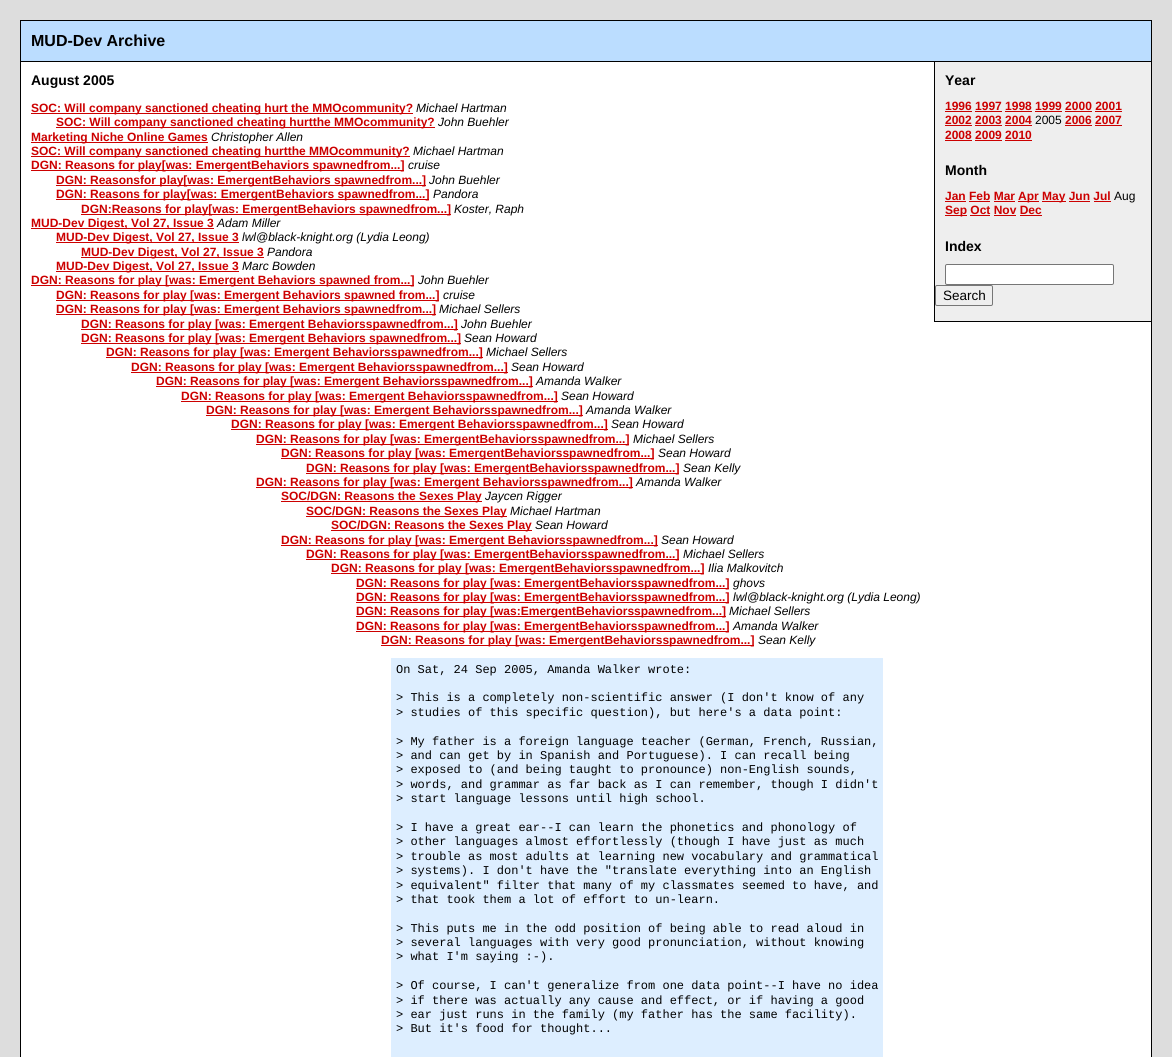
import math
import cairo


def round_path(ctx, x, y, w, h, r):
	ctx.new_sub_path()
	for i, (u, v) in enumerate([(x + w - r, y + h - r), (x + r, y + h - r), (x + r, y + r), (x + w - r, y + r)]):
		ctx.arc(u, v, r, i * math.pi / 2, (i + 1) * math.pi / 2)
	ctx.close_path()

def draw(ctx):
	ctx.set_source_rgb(0.867, 0.867, 0.867)
	ctx.paint()
	ctx.set_source_rgb(0.733, 0.867, 1)
	ctx.rectangle(21, 21, 1130, 40)
	ctx.fill()
	ctx.set_source_rgb(0, 0, 0)
	ctx.rectangle(20, 20, 1132, 1)
	ctx.rectangle(1151, 20, 1, 41)
	ctx.rectangle(20, 20, 1, 41)
	ctx.fill()
	ctx.select_font_face('Liberation Sans', cairo.FONT_SLANT_NORMAL, cairo.FONT_WEIGHT_BOLD)
	ctx.set_font_size(16)
	ctx.move_to(31, 46)
	ctx.show_text('MUD-Dev Archive')
	ctx.set_source_rgb(1, 1, 1)
	ctx.rectangle(20.5, 61.5, 1131, 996)
	ctx.fill_preserve()
	ctx.set_source_rgb(0, 0, 0)
	ctx.set_line_width(1)
	ctx.stroke()
	ctx.set_font_size(14)
	ctx.move_to(31, 85)
	ctx.show_text('August 2005')
	ctx.set_source_rgb(0.8, 0, 0)
	ctx.rectangle(31, 113, 382, 1)
	ctx.fill()
	ctx.set_font_size(12)
	ctx.move_to(31, 112)
	ctx.show_text('SOC: Will company sanctioned cheating hurt the MMOcommunity?')
	ctx.select_font_face('Liberation Sans', cairo.FONT_SLANT_ITALIC)
	ctx.set_source_rgb(0, 0, 0)
	ctx.move_to(416, 112)
	ctx.show_text('Michael Hartman')
	ctx.set_source_rgb(0.8, 0, 0)
	ctx.rectangle(56, 127, 379, 1)
	ctx.fill()
	ctx.select_font_face('Liberation Sans', cairo.FONT_SLANT_NORMAL, cairo.FONT_WEIGHT_BOLD)
	ctx.move_to(56, 126)
	ctx.show_text('SOC: Will company sanctioned cheating hurtthe MMOcommunity?')
	ctx.select_font_face('Liberation Sans', cairo.FONT_SLANT_ITALIC)
	ctx.set_source_rgb(0, 0, 0)
	ctx.move_to(438, 126)
	ctx.show_text('John Buehler')
	ctx.set_source_rgb(0.8, 0, 0)
	ctx.rectangle(31, 142, 177, 1)
	ctx.fill()
	ctx.select_font_face('Liberation Sans', cairo.FONT_SLANT_NORMAL, cairo.FONT_WEIGHT_BOLD)
	ctx.move_to(31, 141)
	ctx.show_text('Marketing Niche Online Games')
	ctx.select_font_face('Liberation Sans', cairo.FONT_SLANT_ITALIC)
	ctx.set_source_rgb(0, 0, 0)
	ctx.move_to(211, 141)
	ctx.show_text('Christopher Allen')
	ctx.set_source_rgb(0.8, 0, 0)
	ctx.rectangle(31, 156, 379, 1)
	ctx.fill()
	ctx.select_font_face('Liberation Sans', cairo.FONT_SLANT_NORMAL, cairo.FONT_WEIGHT_BOLD)
	ctx.move_to(31, 155)
	ctx.show_text('SOC: Will company sanctioned cheating hurtthe MMOcommunity?')
	ctx.select_font_face('Liberation Sans', cairo.FONT_SLANT_ITALIC)
	ctx.set_source_rgb(0, 0, 0)
	ctx.move_to(413, 155)
	ctx.show_text('Michael Hartman')
	ctx.set_source_rgb(0.8, 0, 0)
	ctx.rectangle(31, 170, 373, 1)
	ctx.fill()
	ctx.select_font_face('Liberation Sans', cairo.FONT_SLANT_NORMAL, cairo.FONT_WEIGHT_BOLD)
	ctx.move_to(31, 169)
	ctx.show_text('DGN: Reasons for play[was: EmergentBehaviors spawnedfrom...]')
	ctx.select_font_face('Liberation Sans', cairo.FONT_SLANT_ITALIC)
	ctx.set_source_rgb(0, 0, 0)
	ctx.move_to(408, 169)
	ctx.show_text('cruise')
	ctx.set_source_rgb(0.8, 0, 0)
	ctx.rectangle(56, 185, 370, 1)
	ctx.fill()
	ctx.select_font_face('Liberation Sans', cairo.FONT_SLANT_NORMAL, cairo.FONT_WEIGHT_BOLD)
	ctx.move_to(56, 184)
	ctx.show_text('DGN: Reasonsfor play[was: EmergentBehaviors spawnedfrom...]')
	ctx.select_font_face('Liberation Sans', cairo.FONT_SLANT_ITALIC)
	ctx.set_source_rgb(0, 0, 0)
	ctx.move_to(429, 184)
	ctx.show_text('John Buehler')
	ctx.set_source_rgb(0.8, 0, 0)
	ctx.rectangle(56, 199, 373, 1)
	ctx.fill()
	ctx.select_font_face('Liberation Sans', cairo.FONT_SLANT_NORMAL, cairo.FONT_WEIGHT_BOLD)
	ctx.move_to(56, 198)
	ctx.show_text('DGN: Reasons for play[was: EmergentBehaviors spawnedfrom...]')
	ctx.select_font_face('Liberation Sans', cairo.FONT_SLANT_ITALIC)
	ctx.set_source_rgb(0, 0, 0)
	ctx.move_to(433, 198)
	ctx.show_text('Pandora')
	ctx.set_source_rgb(0.8, 0, 0)
	ctx.rectangle(81, 214, 370, 1)
	ctx.fill()
	ctx.select_font_face('Liberation Sans', cairo.FONT_SLANT_NORMAL, cairo.FONT_WEIGHT_BOLD)
	ctx.move_to(81, 213)
	ctx.show_text('DGN:Reasons for play[was: EmergentBehaviors spawnedfrom...]')
	ctx.select_font_face('Liberation Sans', cairo.FONT_SLANT_ITALIC)
	ctx.set_source_rgb(0, 0, 0)
	ctx.move_to(454, 213)
	ctx.show_text('Koster, Raph')
	ctx.set_source_rgb(0.8, 0, 0)
	ctx.rectangle(31, 228, 183, 1)
	ctx.fill()
	ctx.select_font_face('Liberation Sans', cairo.FONT_SLANT_NORMAL, cairo.FONT_WEIGHT_BOLD)
	ctx.move_to(31, 227)
	ctx.show_text('MUD-Dev Digest, Vol 27, Issue 3')
	ctx.select_font_face('Liberation Sans', cairo.FONT_SLANT_ITALIC)
	ctx.set_source_rgb(0, 0, 0)
	ctx.move_to(217, 227)
	ctx.show_text('Adam Miller')
	ctx.set_source_rgb(0.8, 0, 0)
	ctx.rectangle(56, 242, 183, 1)
	ctx.fill()
	ctx.select_font_face('Liberation Sans', cairo.FONT_SLANT_NORMAL, cairo.FONT_WEIGHT_BOLD)
	ctx.move_to(56, 241)
	ctx.show_text('MUD-Dev Digest, Vol 27, Issue 3')
	ctx.select_font_face('Liberation Sans', cairo.FONT_SLANT_ITALIC)
	ctx.set_source_rgb(0, 0, 0)
	ctx.move_to(242, 241)
	ctx.show_text('lwl@black-knight.org (Lydia Leong)')
	ctx.set_source_rgb(0.8, 0, 0)
	ctx.rectangle(81, 257, 183, 1)
	ctx.fill()
	ctx.select_font_face('Liberation Sans', cairo.FONT_SLANT_NORMAL, cairo.FONT_WEIGHT_BOLD)
	ctx.move_to(81, 256)
	ctx.show_text('MUD-Dev Digest, Vol 27, Issue 3')
	ctx.select_font_face('Liberation Sans', cairo.FONT_SLANT_ITALIC)
	ctx.set_source_rgb(0, 0, 0)
	ctx.move_to(267, 256)
	ctx.show_text('Pandora')
	ctx.set_source_rgb(0.8, 0, 0)
	ctx.rectangle(56, 271, 183, 1)
	ctx.fill()
	ctx.select_font_face('Liberation Sans', cairo.FONT_SLANT_NORMAL, cairo.FONT_WEIGHT_BOLD)
	ctx.move_to(56, 270)
	ctx.show_text('MUD-Dev Digest, Vol 27, Issue 3')
	ctx.select_font_face('Liberation Sans', cairo.FONT_SLANT_ITALIC)
	ctx.set_source_rgb(0, 0, 0)
	ctx.move_to(242, 270)
	ctx.show_text('Marc Bowden')
	ctx.set_source_rgb(0.8, 0, 0)
	ctx.rectangle(31, 285, 383, 1)
	ctx.fill()
	ctx.select_font_face('Liberation Sans', cairo.FONT_SLANT_NORMAL, cairo.FONT_WEIGHT_BOLD)
	ctx.move_to(31, 284)
	ctx.show_text('DGN: Reasons for play [was: Emergent Behaviors spawned from...]')
	ctx.select_font_face('Liberation Sans', cairo.FONT_SLANT_ITALIC)
	ctx.set_source_rgb(0, 0, 0)
	ctx.move_to(418, 284)
	ctx.show_text('John Buehler')
	ctx.set_source_rgb(0.8, 0, 0)
	ctx.rectangle(56, 300, 383, 1)
	ctx.fill()
	ctx.select_font_face('Liberation Sans', cairo.FONT_SLANT_NORMAL, cairo.FONT_WEIGHT_BOLD)
	ctx.move_to(56, 299)
	ctx.show_text('DGN: Reasons for play [was: Emergent Behaviors spawned from...]')
	ctx.select_font_face('Liberation Sans', cairo.FONT_SLANT_ITALIC)
	ctx.set_source_rgb(0, 0, 0)
	ctx.move_to(443, 299)
	ctx.show_text('cruise')
	ctx.set_source_rgb(0.8, 0, 0)
	ctx.rectangle(56, 314, 380, 1)
	ctx.fill()
	ctx.select_font_face('Liberation Sans', cairo.FONT_SLANT_NORMAL, cairo.FONT_WEIGHT_BOLD)
	ctx.move_to(56, 313)
	ctx.show_text('DGN: Reasons for play [was: Emergent Behaviors spawnedfrom...]')
	ctx.select_font_face('Liberation Sans', cairo.FONT_SLANT_ITALIC)
	ctx.set_source_rgb(0, 0, 0)
	ctx.move_to(439, 313)
	ctx.show_text('Michael Sellers')
	ctx.set_source_rgb(0.8, 0, 0)
	ctx.rectangle(81, 329, 377, 1)
	ctx.fill()
	ctx.select_font_face('Liberation Sans', cairo.FONT_SLANT_NORMAL, cairo.FONT_WEIGHT_BOLD)
	ctx.move_to(81, 328)
	ctx.show_text('DGN: Reasons for play [was: Emergent Behaviorsspawnedfrom...]')
	ctx.select_font_face('Liberation Sans', cairo.FONT_SLANT_ITALIC)
	ctx.set_source_rgb(0, 0, 0)
	ctx.move_to(461, 328)
	ctx.show_text('John Buehler')
	ctx.set_source_rgb(0.8, 0, 0)
	ctx.rectangle(81, 343, 380, 1)
	ctx.fill()
	ctx.select_font_face('Liberation Sans', cairo.FONT_SLANT_NORMAL, cairo.FONT_WEIGHT_BOLD)
	ctx.move_to(81, 342)
	ctx.show_text('DGN: Reasons for play [was: Emergent Behaviors spawnedfrom...]')
	ctx.select_font_face('Liberation Sans', cairo.FONT_SLANT_ITALIC)
	ctx.set_source_rgb(0, 0, 0)
	ctx.move_to(464, 342)
	ctx.show_text('Sean Howard')
	ctx.set_source_rgb(0.8, 0, 0)
	ctx.rectangle(106, 357, 377, 1)
	ctx.fill()
	ctx.select_font_face('Liberation Sans', cairo.FONT_SLANT_NORMAL, cairo.FONT_WEIGHT_BOLD)
	ctx.move_to(106, 356)
	ctx.show_text('DGN: Reasons for play [was: Emergent Behaviorsspawnedfrom...]')
	ctx.select_font_face('Liberation Sans', cairo.FONT_SLANT_ITALIC)
	ctx.set_source_rgb(0, 0, 0)
	ctx.move_to(486, 356)
	ctx.show_text('Michael Sellers')
	ctx.set_source_rgb(0.8, 0, 0)
	ctx.rectangle(131, 372, 377, 1)
	ctx.fill()
	ctx.select_font_face('Liberation Sans', cairo.FONT_SLANT_NORMAL, cairo.FONT_WEIGHT_BOLD)
	ctx.move_to(131, 371)
	ctx.show_text('DGN: Reasons for play [was: Emergent Behaviorsspawnedfrom...]')
	ctx.select_font_face('Liberation Sans', cairo.FONT_SLANT_ITALIC)
	ctx.set_source_rgb(0, 0, 0)
	ctx.move_to(511, 371)
	ctx.show_text('Sean Howard')
	ctx.set_source_rgb(0.8, 0, 0)
	ctx.rectangle(156, 386, 377, 1)
	ctx.fill()
	ctx.select_font_face('Liberation Sans', cairo.FONT_SLANT_NORMAL, cairo.FONT_WEIGHT_BOLD)
	ctx.move_to(156, 385)
	ctx.show_text('DGN: Reasons for play [was: Emergent Behaviorsspawnedfrom...]')
	ctx.select_font_face('Liberation Sans', cairo.FONT_SLANT_ITALIC)
	ctx.set_source_rgb(0, 0, 0)
	ctx.move_to(536, 385)
	ctx.show_text('Amanda Walker')
	ctx.set_source_rgb(0.8, 0, 0)
	ctx.rectangle(181, 401, 377, 1)
	ctx.fill()
	ctx.select_font_face('Liberation Sans', cairo.FONT_SLANT_NORMAL, cairo.FONT_WEIGHT_BOLD)
	ctx.move_to(181, 400)
	ctx.show_text('DGN: Reasons for play [was: Emergent Behaviorsspawnedfrom...]')
	ctx.select_font_face('Liberation Sans', cairo.FONT_SLANT_ITALIC)
	ctx.set_source_rgb(0, 0, 0)
	ctx.move_to(561, 400)
	ctx.show_text('Sean Howard')
	ctx.set_source_rgb(0.8, 0, 0)
	ctx.rectangle(206, 415, 377, 1)
	ctx.fill()
	ctx.select_font_face('Liberation Sans', cairo.FONT_SLANT_NORMAL, cairo.FONT_WEIGHT_BOLD)
	ctx.move_to(206, 414)
	ctx.show_text('DGN: Reasons for play [was: Emergent Behaviorsspawnedfrom...]')
	ctx.select_font_face('Liberation Sans', cairo.FONT_SLANT_ITALIC)
	ctx.set_source_rgb(0, 0, 0)
	ctx.move_to(586, 414)
	ctx.show_text('Amanda Walker')
	ctx.set_source_rgb(0.8, 0, 0)
	ctx.rectangle(231, 429, 377, 1)
	ctx.fill()
	ctx.select_font_face('Liberation Sans', cairo.FONT_SLANT_NORMAL, cairo.FONT_WEIGHT_BOLD)
	ctx.move_to(231, 428)
	ctx.show_text('DGN: Reasons for play [was: Emergent Behaviorsspawnedfrom...]')
	ctx.select_font_face('Liberation Sans', cairo.FONT_SLANT_ITALIC)
	ctx.set_source_rgb(0, 0, 0)
	ctx.move_to(611, 428)
	ctx.show_text('Sean Howard')
	ctx.set_source_rgb(0.8, 0, 0)
	ctx.rectangle(256, 444, 373, 1)
	ctx.fill()
	ctx.select_font_face('Liberation Sans', cairo.FONT_SLANT_NORMAL, cairo.FONT_WEIGHT_BOLD)
	ctx.move_to(256, 443)
	ctx.show_text('DGN: Reasons for play [was: EmergentBehaviorsspawnedfrom...]')
	ctx.select_font_face('Liberation Sans', cairo.FONT_SLANT_ITALIC)
	ctx.set_source_rgb(0, 0, 0)
	ctx.move_to(633, 443)
	ctx.show_text('Michael Sellers')
	ctx.set_source_rgb(0.8, 0, 0)
	ctx.rectangle(281, 458, 373, 1)
	ctx.fill()
	ctx.select_font_face('Liberation Sans', cairo.FONT_SLANT_NORMAL, cairo.FONT_WEIGHT_BOLD)
	ctx.move_to(281, 457)
	ctx.show_text('DGN: Reasons for play [was: EmergentBehaviorsspawnedfrom...]')
	ctx.select_font_face('Liberation Sans', cairo.FONT_SLANT_ITALIC)
	ctx.set_source_rgb(0, 0, 0)
	ctx.move_to(658, 457)
	ctx.show_text('Sean Howard')
	ctx.set_source_rgb(0.8, 0, 0)
	ctx.rectangle(306, 473, 373, 1)
	ctx.fill()
	ctx.select_font_face('Liberation Sans', cairo.FONT_SLANT_NORMAL, cairo.FONT_WEIGHT_BOLD)
	ctx.move_to(306, 472)
	ctx.show_text('DGN: Reasons for play [was: EmergentBehaviorsspawnedfrom...]')
	ctx.select_font_face('Liberation Sans', cairo.FONT_SLANT_ITALIC)
	ctx.set_source_rgb(0, 0, 0)
	ctx.move_to(683, 472)
	ctx.show_text('Sean Kelly')
	ctx.set_source_rgb(0.8, 0, 0)
	ctx.rectangle(256, 487, 377, 1)
	ctx.fill()
	ctx.select_font_face('Liberation Sans', cairo.FONT_SLANT_NORMAL, cairo.FONT_WEIGHT_BOLD)
	ctx.move_to(256, 486)
	ctx.show_text('DGN: Reasons for play [was: Emergent Behaviorsspawnedfrom...]')
	ctx.select_font_face('Liberation Sans', cairo.FONT_SLANT_ITALIC)
	ctx.set_source_rgb(0, 0, 0)
	ctx.move_to(636, 486)
	ctx.show_text('Amanda Walker')
	ctx.set_source_rgb(0.8, 0, 0)
	ctx.rectangle(281, 501, 201, 1)
	ctx.fill()
	ctx.select_font_face('Liberation Sans', cairo.FONT_SLANT_NORMAL, cairo.FONT_WEIGHT_BOLD)
	ctx.move_to(281, 500)
	ctx.show_text('SOC/DGN: Reasons the Sexes Play')
	ctx.select_font_face('Liberation Sans', cairo.FONT_SLANT_ITALIC)
	ctx.set_source_rgb(0, 0, 0)
	ctx.move_to(485, 500)
	ctx.show_text('Jaycen Rigger')
	ctx.set_source_rgb(0.8, 0, 0)
	ctx.rectangle(306, 516, 201, 1)
	ctx.fill()
	ctx.select_font_face('Liberation Sans', cairo.FONT_SLANT_NORMAL, cairo.FONT_WEIGHT_BOLD)
	ctx.move_to(306, 515)
	ctx.show_text('SOC/DGN: Reasons the Sexes Play')
	ctx.select_font_face('Liberation Sans', cairo.FONT_SLANT_ITALIC)
	ctx.set_source_rgb(0, 0, 0)
	ctx.move_to(510, 515)
	ctx.show_text('Michael Hartman')
	ctx.set_source_rgb(0.8, 0, 0)
	ctx.rectangle(331, 530, 201, 1)
	ctx.fill()
	ctx.select_font_face('Liberation Sans', cairo.FONT_SLANT_NORMAL, cairo.FONT_WEIGHT_BOLD)
	ctx.move_to(331, 529)
	ctx.show_text('SOC/DGN: Reasons the Sexes Play')
	ctx.select_font_face('Liberation Sans', cairo.FONT_SLANT_ITALIC)
	ctx.set_source_rgb(0, 0, 0)
	ctx.move_to(535, 529)
	ctx.show_text('Sean Howard')
	ctx.set_source_rgb(0.8, 0, 0)
	ctx.rectangle(281, 545, 377, 1)
	ctx.fill()
	ctx.select_font_face('Liberation Sans', cairo.FONT_SLANT_NORMAL, cairo.FONT_WEIGHT_BOLD)
	ctx.move_to(281, 544)
	ctx.show_text('DGN: Reasons for play [was: Emergent Behaviorsspawnedfrom...]')
	ctx.select_font_face('Liberation Sans', cairo.FONT_SLANT_ITALIC)
	ctx.set_source_rgb(0, 0, 0)
	ctx.move_to(661, 544)
	ctx.show_text('Sean Howard')
	ctx.set_source_rgb(0.8, 0, 0)
	ctx.rectangle(306, 559, 373, 1)
	ctx.fill()
	ctx.select_font_face('Liberation Sans', cairo.FONT_SLANT_NORMAL, cairo.FONT_WEIGHT_BOLD)
	ctx.move_to(306, 558)
	ctx.show_text('DGN: Reasons for play [was: EmergentBehaviorsspawnedfrom...]')
	ctx.select_font_face('Liberation Sans', cairo.FONT_SLANT_ITALIC)
	ctx.set_source_rgb(0, 0, 0)
	ctx.move_to(683, 558)
	ctx.show_text('Michael Sellers')
	ctx.set_source_rgb(0.8, 0, 0)
	ctx.rectangle(331, 573, 373, 1)
	ctx.fill()
	ctx.select_font_face('Liberation Sans', cairo.FONT_SLANT_NORMAL, cairo.FONT_WEIGHT_BOLD)
	ctx.move_to(331, 572)
	ctx.show_text('DGN: Reasons for play [was: EmergentBehaviorsspawnedfrom...]')
	ctx.select_font_face('Liberation Sans', cairo.FONT_SLANT_ITALIC)
	ctx.set_source_rgb(0, 0, 0)
	ctx.move_to(708, 572)
	ctx.show_text('Ilia Malkovitch')
	ctx.set_source_rgb(0.8, 0, 0)
	ctx.rectangle(356, 588, 373, 1)
	ctx.fill()
	ctx.select_font_face('Liberation Sans', cairo.FONT_SLANT_NORMAL, cairo.FONT_WEIGHT_BOLD)
	ctx.move_to(356, 587)
	ctx.show_text('DGN: Reasons for play [was: EmergentBehaviorsspawnedfrom...]')
	ctx.select_font_face('Liberation Sans', cairo.FONT_SLANT_ITALIC)
	ctx.set_source_rgb(0, 0, 0)
	ctx.move_to(733, 587)
	ctx.show_text('ghovs')
	ctx.set_source_rgb(0.8, 0, 0)
	ctx.rectangle(356, 602, 373, 1)
	ctx.fill()
	ctx.select_font_face('Liberation Sans', cairo.FONT_SLANT_NORMAL, cairo.FONT_WEIGHT_BOLD)
	ctx.move_to(356, 601)
	ctx.show_text('DGN: Reasons for play [was: EmergentBehaviorsspawnedfrom...]')
	ctx.select_font_face('Liberation Sans', cairo.FONT_SLANT_ITALIC)
	ctx.set_source_rgb(0, 0, 0)
	ctx.move_to(733, 601)
	ctx.show_text('lwl@black-knight.org (Lydia Leong)')
	ctx.set_source_rgb(0.8, 0, 0)
	ctx.rectangle(356, 616, 370, 1)
	ctx.fill()
	ctx.select_font_face('Liberation Sans', cairo.FONT_SLANT_NORMAL, cairo.FONT_WEIGHT_BOLD)
	ctx.move_to(356, 615)
	ctx.show_text('DGN: Reasons for play [was:EmergentBehaviorsspawnedfrom...]')
	ctx.select_font_face('Liberation Sans', cairo.FONT_SLANT_ITALIC)
	ctx.set_source_rgb(0, 0, 0)
	ctx.move_to(729, 615)
	ctx.show_text('Michael Sellers')
	ctx.set_source_rgb(0.8, 0, 0)
	ctx.rectangle(356, 631, 373, 1)
	ctx.fill()
	ctx.select_font_face('Liberation Sans', cairo.FONT_SLANT_NORMAL, cairo.FONT_WEIGHT_BOLD)
	ctx.move_to(356, 630)
	ctx.show_text('DGN: Reasons for play [was: EmergentBehaviorsspawnedfrom...]')
	ctx.select_font_face('Liberation Sans', cairo.FONT_SLANT_ITALIC)
	ctx.set_source_rgb(0, 0, 0)
	ctx.move_to(733, 630)
	ctx.show_text('Amanda Walker')
	ctx.set_source_rgb(0.8, 0, 0)
	ctx.rectangle(381, 645, 373, 1)
	ctx.fill()
	ctx.select_font_face('Liberation Sans', cairo.FONT_SLANT_NORMAL, cairo.FONT_WEIGHT_BOLD)
	ctx.move_to(381, 644)
	ctx.show_text('DGN: Reasons for play [was: EmergentBehaviorsspawnedfrom...]')
	ctx.select_font_face('Liberation Sans', cairo.FONT_SLANT_ITALIC)
	ctx.set_source_rgb(0, 0, 0)
	ctx.move_to(758, 644)
	ctx.show_text('Sean Kelly')
	ctx.set_source_rgb(0.867, 0.933, 1)
	ctx.rectangle(391, 658, 492, 399)
	ctx.fill()
	ctx.select_font_face('Liberation Mono')
	ctx.set_source_rgb(0, 0, 0)
	for x, y, s in [
		(396, 673, 'On Sat, 24 Sep 2005, Amanda Walker wrote:'),
		(396, 701, '> This is a completely non-scientific answer (I don\'t know of any'),
		(396, 716, '> studies of this specific question), but here\'s a data point:'),
		(396, 745, '> My father is a foreign language teacher (German, French, Russian,'),
		(396, 759, '> and can get by in Spanish and Portuguese). I can recall being'),
		(396, 773, '> exposed to (and being taught to pronounce) non-English sounds,'),
		(396, 788, '> words, and grammar as far back as I can remember, though I didn\'t'),
		(396, 802, '> start language lessons until high school.'),
		(396, 831, '> I have a great ear--I can learn the phonetics and phonology of'),
		(396, 845, '> other languages almost effortlessly (though I have just as much'),
		(396, 860, '> trouble as most adults at learning new vocabulary and grammatical'),
		(396, 874, '> systems). I don\'t have the "translate everything into an English'),
		(396, 889, '> equivalent" filter that many of my classmates seemed to have, and'),
		(396, 903, '> that took them a lot of effort to un-learn.'),
		(396, 932, '> This puts me in the odd position of being able to read aloud in'),
		(396, 946, '> several languages with very good pronunciation, without knowing'),
		(396, 960, '> what I\'m saying :-).'),
		(396, 989, '> Of course, I can\'t generalize from one data point--I have no idea'),
		(396, 1004, '> if there was actually any cause and effect, or if having a good'),
		(396, 1018, '> ear just runs in the family (my father has the same facility).'),
		(396, 1032, '> But it\'s food for thought...'),
	]:
		ctx.move_to(x, y)
		ctx.show_text(s)
	ctx.set_source_rgb(0.933, 0.933, 0.933)
	ctx.rectangle(935, 62, 216, 259)
	ctx.fill()
	ctx.set_source_rgb(0, 0, 0)
	ctx.rectangle(934, 321, 218, 1)
	ctx.rectangle(934, 62, 1, 260)
	ctx.fill()
	ctx.select_font_face('Liberation Sans', cairo.FONT_SLANT_NORMAL, cairo.FONT_WEIGHT_BOLD)
	ctx.set_font_size(14)
	ctx.move_to(945, 85)
	ctx.show_text('Year')
	ctx.set_font_size(12)
	ctx.set_source_rgb(0.8, 0, 0)
	ctx.move_to(945, 110)
	ctx.show_text('1996 1997 1998 1999 2000 2001')
	ctx.rectangle(945, 111, 27, 1)
	ctx.rectangle(975, 111, 27, 1)
	ctx.rectangle(1005, 111, 27, 1)
	ctx.rectangle(1035, 111, 27, 1)
	ctx.rectangle(1065, 111, 27, 1)
	ctx.rectangle(1095, 111, 27, 1)
	ctx.fill()
	ctx.move_to(945, 124)
	ctx.show_text('2002 2003 2004')
	ctx.rectangle(945, 125, 27, 1)
	ctx.fill()
	ctx.select_font_face('Liberation Sans')
	ctx.set_source_rgb(0, 0, 0)
	ctx.move_to(1035, 124)
	ctx.show_text('2005')
	ctx.select_font_face('Liberation Sans', cairo.FONT_SLANT_NORMAL, cairo.FONT_WEIGHT_BOLD)
	ctx.set_source_rgb(0.8, 0, 0)
	ctx.move_to(1065, 124)
	ctx.show_text('2006 2007')
	ctx.rectangle(1065, 125, 27, 1)
	ctx.rectangle(975, 125, 27, 1)
	ctx.rectangle(1005, 125, 27, 1)
	ctx.rectangle(1095, 125, 27, 1)
	ctx.fill()
	ctx.move_to(945, 139)
	ctx.show_text('2008 2009 2010')
	ctx.rectangle(945, 140, 27, 1)
	ctx.rectangle(975, 140, 27, 1)
	ctx.rectangle(1005, 140, 27, 1)
	ctx.fill()
	ctx.set_font_size(14)
	ctx.set_source_rgb(0, 0, 0)
	ctx.move_to(945, 175)
	ctx.show_text('Month')
	ctx.set_font_size(12)
	ctx.set_source_rgb(0.8, 0, 0)
	ctx.move_to(945, 200)
	ctx.show_text('Jan Feb Mar')
	ctx.rectangle(945, 201, 21, 1)
	ctx.fill()
	ctx.rectangle(1018, 201, 21, 1)
	ctx.fill()
	ctx.move_to(1018, 200)
	ctx.show_text('Apr')
	ctx.rectangle(1042, 201, 24, 1)
	ctx.fill()
	ctx.move_to(1042, 200)
	ctx.show_text('May Jun Jul')
	ctx.select_font_face('Liberation Sans')
	ctx.set_source_rgb(0, 0, 0)
	ctx.move_to(1114, 200)
	ctx.show_text('Aug')
	ctx.set_source_rgb(0.8, 0, 0)
	ctx.rectangle(969, 201, 21, 1)
	ctx.rectangle(994, 201, 21, 1)
	ctx.rectangle(1069, 201, 21, 1)
	ctx.rectangle(1094, 201, 17, 1)
	ctx.rectangle(945, 215, 22, 1)
	ctx.fill()
	ctx.select_font_face('Liberation Sans', cairo.FONT_SLANT_NORMAL, cairo.FONT_WEIGHT_BOLD)
	ctx.move_to(945, 214)
	ctx.show_text('Sep Oct Nov Dec')
	ctx.rectangle(970, 215, 20, 1)
	ctx.rectangle(994, 215, 22, 1)
	ctx.rectangle(1020, 215, 22, 1)
	ctx.fill()
	ctx.set_font_size(14)
	ctx.set_source_rgb(0, 0, 0)
	ctx.move_to(945, 251)
	ctx.show_text('Index')
	ctx.set_source_rgb(1, 1, 1)
	round_path(ctx, 945.5, 264.5, 168, 20, 1.5)
	ctx.fill_preserve()
	ctx.set_source_rgb(0.463, 0.463, 0.463)
	ctx.stroke()
	round_path(ctx, 935.5, 285.5, 57, 20, 1.5)
	ctx.stroke()
	ctx.select_font_face('Liberation Sans')
	ctx.set_font_size(13.5)
	ctx.set_source_rgb(0, 0, 0)
	ctx.move_to(943, 300)
	ctx.show_text('Search')


surface = cairo.ImageSurface(cairo.FORMAT_RGB24, 1172, 1057)
ctx = cairo.Context(surface)
options = cairo.FontOptions()
options.set_hint_metrics(cairo.HINT_METRICS_OFF)
options.set_hint_style(cairo.HINT_STYLE_NONE)
ctx.set_font_options(options)
ctx.set_miter_limit(4)
draw(ctx)
surface.write_to_png('image.png')
